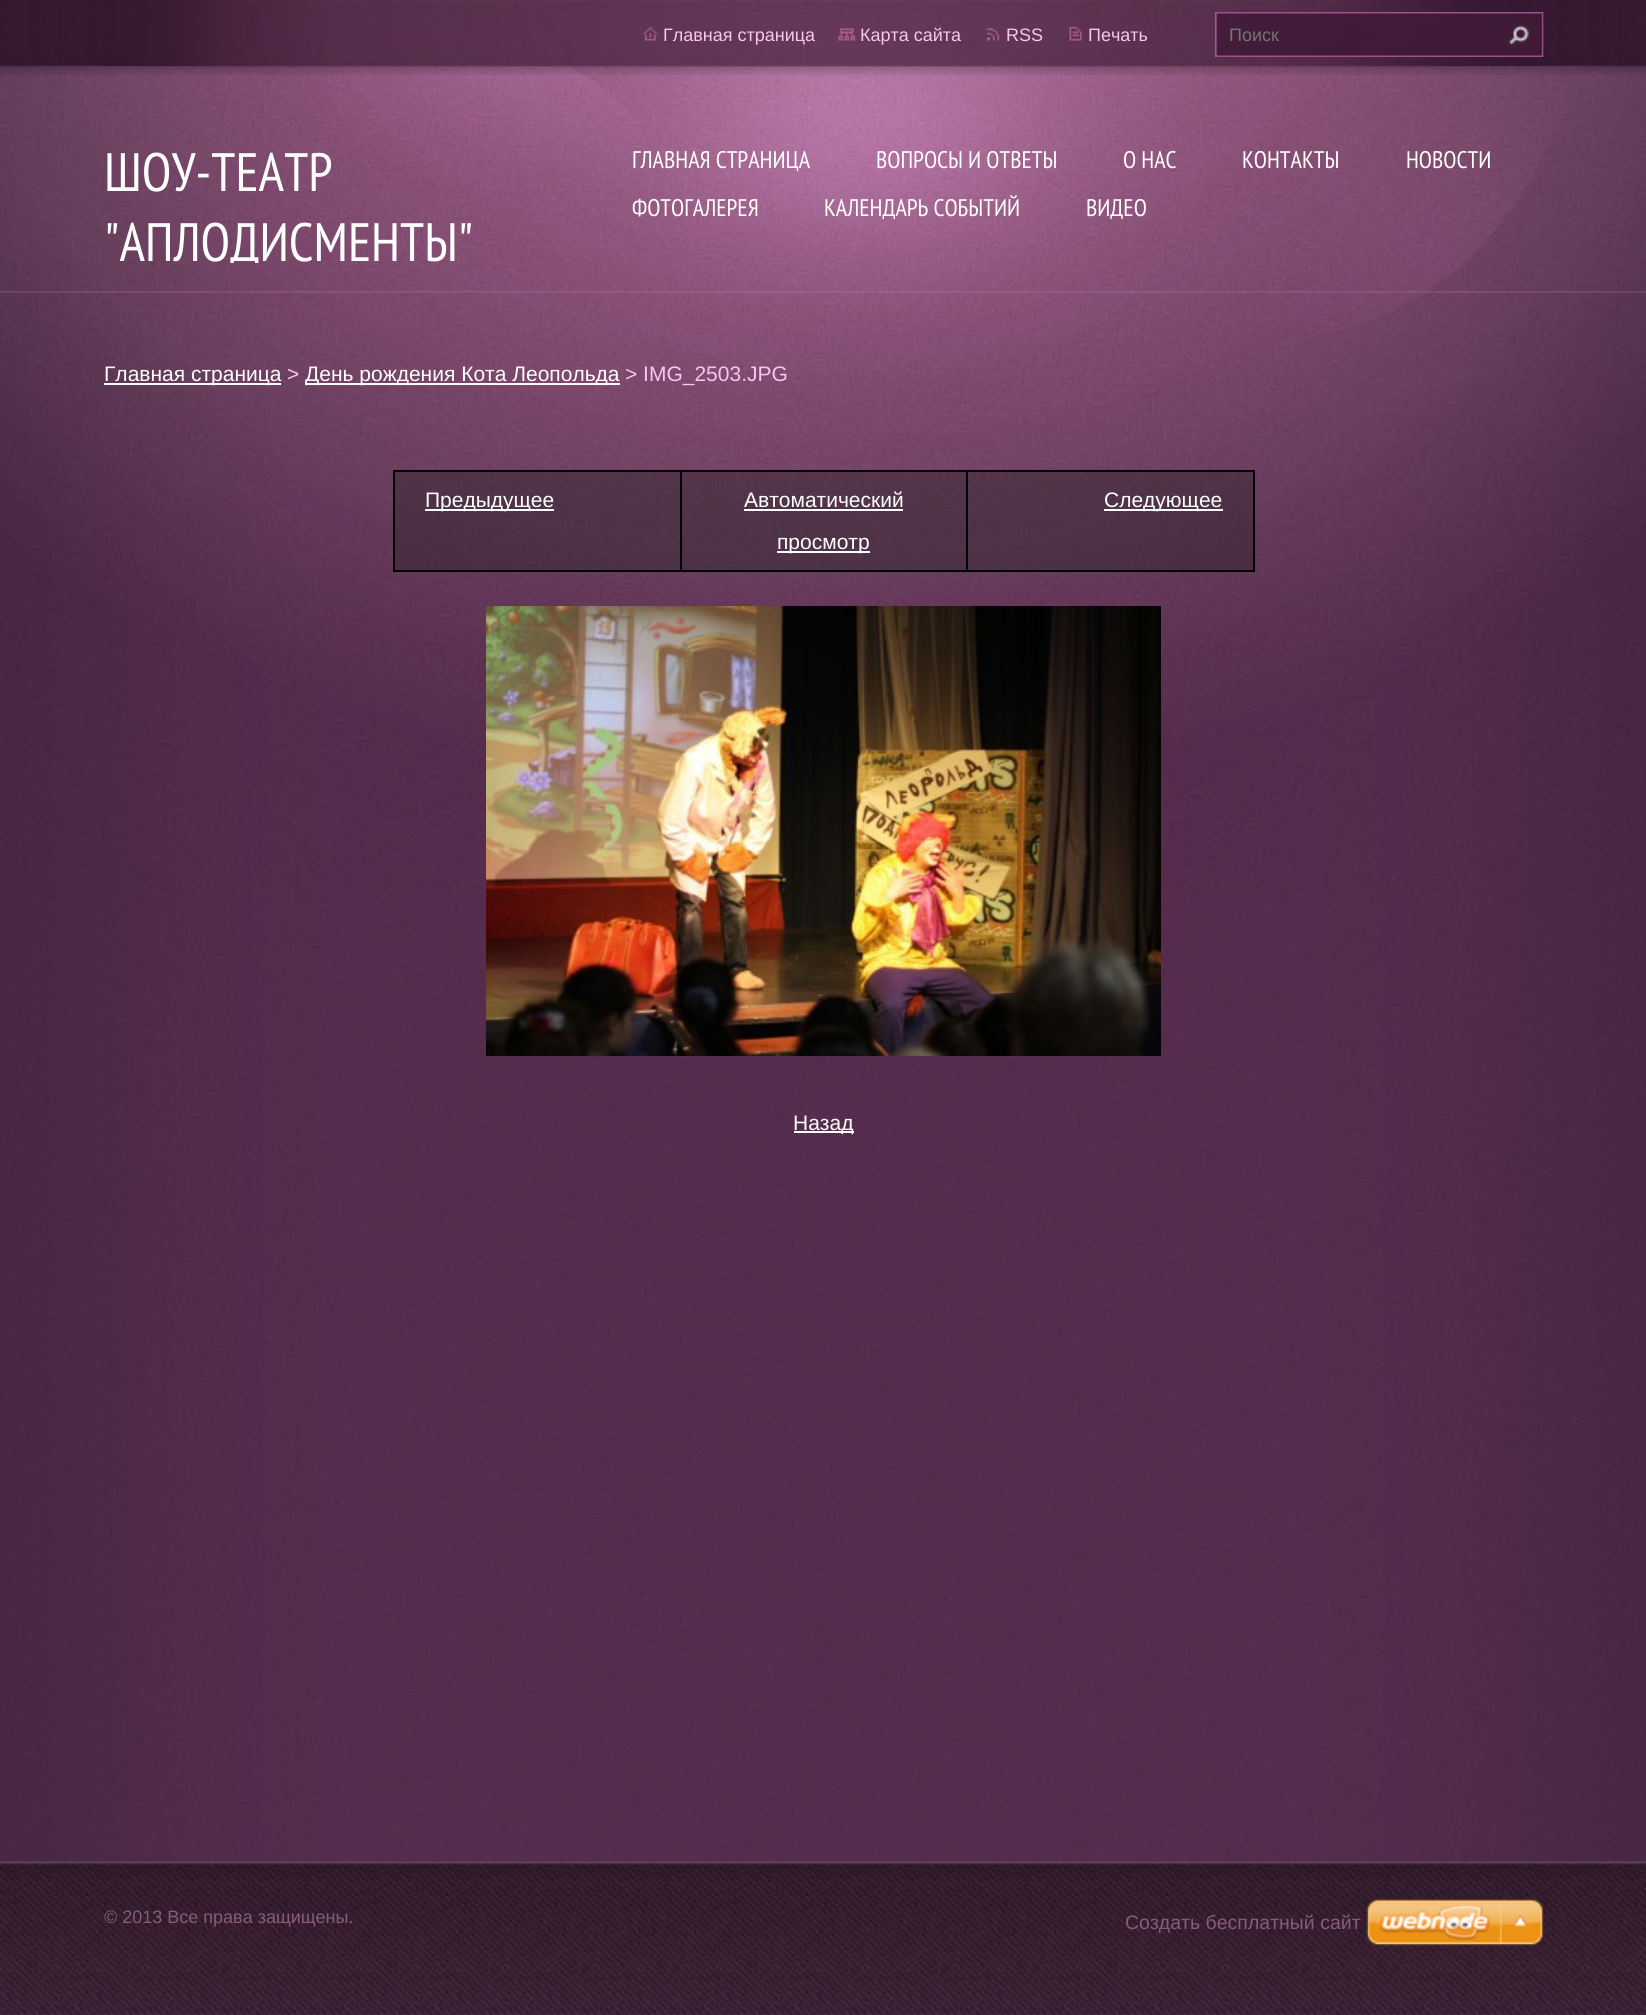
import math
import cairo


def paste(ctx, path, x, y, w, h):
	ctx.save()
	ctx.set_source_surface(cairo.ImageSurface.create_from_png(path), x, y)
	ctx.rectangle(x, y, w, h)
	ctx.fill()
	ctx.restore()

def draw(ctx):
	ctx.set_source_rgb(1, 1, 1)
	ctx.paint()
	paste(ctx, 'media/1.png', 0, 900, 1646, 962)
	paste(ctx, 'media/2.png', 0, 65, 1646, 835)
	paste(ctx, 'media/3.png', 0, 291, 1646, 2)
	paste(ctx, 'media/4.png', 0, 0, 1646, 75)
	paste(ctx, 'media/5.png', 103, 0, 1440, 66)
	paste(ctx, 'media/6.png', 643, 26, 15, 15)
	ctx.select_font_face('Liberation Sans')
	ctx.set_font_size(18)
	ctx.set_source_rgb(0.984, 0.773, 0.925)
	ctx.move_to(663, 41)
	ctx.show_text('Главная страница')
	paste(ctx, 'media/7.png', 838, 28, 18, 13)
	ctx.move_to(860, 41)
	ctx.show_text('Карта сайта')
	paste(ctx, 'media/8.png', 986, 28, 14, 13)
	ctx.move_to(1006, 41)
	ctx.show_text('RSS')
	paste(ctx, 'media/9.png', 1069, 26, 13, 15)
	ctx.move_to(1088, 41)
	ctx.show_text('Печать')
	paste(ctx, 'media/10.png', 1215, 12, 329, 45)
	ctx.set_source_rgb(0.459, 0.459, 0.459)
	ctx.move_to(1229, 41)
	ctx.show_text('Поиск')
	paste(ctx, 'media/11.png', 1508, 25, 21, 20)
	ctx.select_font_face('PT Sans Narrow')
	ctx.set_font_size(54)
	ctx.set_source_rgb(1, 1, 1)
	ctx.move_to(104, 191)
	ctx.show_text('ШОУ-ТЕАТР')
	ctx.save()
	ctx.rectangle(104, 120, 450, 143)
	ctx.clip()
	ctx.move_to(104, 261)
	ctx.show_text('"АПЛОДИСМЕНТЫ"')
	ctx.restore()
	ctx.set_font_size(24)
	for x, y, s in [
		(632, 168, 'ГЛАВНАЯ СТРАНИЦА'),
		(876, 168, 'ВОПРОСЫ И ОТВЕТЫ'),
		(1123, 168, 'О НАС'),
		(1242, 168, 'КОНТАКТЫ'),
		(1406, 168, 'НОВОСТИ'),
		(632, 216, 'ФОТОГАЛЕРЕЯ'),
		(824, 216, 'КАЛЕНДАРЬ СОБЫТИЙ'),
		(1086, 216, 'ВИДЕО'),
	]:
		ctx.move_to(x, y)
		ctx.show_text(s)
	ctx.rectangle(104, 383, 177, 2)
	ctx.fill()
	ctx.select_font_face('Liberation Sans')
	ctx.set_font_size(21)
	ctx.move_to(104, 381)
	ctx.show_text('Главная страница')
	ctx.set_source_rgb(0.984, 0.773, 0.925)
	ctx.move_to(287, 381)
	ctx.show_text('>')
	ctx.set_source_rgb(1, 1, 1)
	ctx.rectangle(305, 383, 315, 2)
	ctx.fill()
	ctx.move_to(305, 381)
	ctx.show_text('День рождения Кота Леопольда')
	ctx.set_source_rgb(0.984, 0.773, 0.925)
	ctx.move_to(625, 381)
	ctx.show_text('> IMG_2503.JPG')
	ctx.set_source_rgb(0, 0, 0)
	ctx.rectangle(393, 470, 861, 2)
	ctx.rectangle(393, 470, 2, 102)
	ctx.fill()
	ctx.set_source_rgba(0.11, 0.11, 0.11, 0.36)
	ctx.rectangle(395, 472, 285, 98)
	ctx.fill()
	ctx.set_source_rgb(0, 0, 0)
	ctx.rectangle(1253, 470, 2, 102)
	ctx.rectangle(966, 570, 288, 2)
	ctx.rectangle(966, 470, 2, 102)
	ctx.rectangle(680, 570, 288, 2)
	ctx.rectangle(680, 470, 2, 102)
	ctx.rectangle(393, 570, 288, 2)
	ctx.fill()
	ctx.set_source_rgb(1, 1, 1)
	ctx.rectangle(425, 509, 129, 2)
	ctx.fill()
	ctx.move_to(425, 507)
	ctx.show_text('Предыдущее')
	ctx.set_source_rgba(0.11, 0.11, 0.11, 0.36)
	ctx.rectangle(682, 472, 284, 98)
	ctx.fill()
	ctx.set_source_rgb(1, 1, 1)
	ctx.move_to(744, 507)
	ctx.show_text('Aвтоматический')
	ctx.rectangle(744, 509, 159, 2)
	ctx.fill()
	ctx.rectangle(777, 551, 93, 2)
	ctx.fill()
	ctx.move_to(777, 549)
	ctx.show_text('просмотр')
	ctx.set_source_rgba(0.11, 0.11, 0.11, 0.36)
	ctx.rectangle(968, 472, 285, 98)
	ctx.fill()
	ctx.set_source_rgb(1, 1, 1)
	ctx.rectangle(1104, 509, 119, 2)
	ctx.fill()
	ctx.move_to(1104, 507)
	ctx.show_text('Следующее')
	paste(ctx, 'media/12.png', 486, 606, 675, 450)
	ctx.rectangle(794, 1131, 60, 2)
	ctx.fill()
	ctx.move_to(793, 1130)
	ctx.show_text('Назад')
	paste(ctx, 'media/13.png', 0, 1861, 1646, 154)
	ctx.save()
	ctx.rectangle(104, 1862, 720, 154)
	ctx.clip()
	ctx.set_font_size(18)
	ctx.set_source_rgb(0.525, 0.361, 0.478)
	ctx.move_to(104, 1923)
	ctx.show_text('© 2013 Все права защищены.')
	ctx.restore()
	ctx.set_font_size(19.5)
	ctx.set_source_rgb(0.525, 0.361, 0.478)
	ctx.move_to(1125, 1929)
	ctx.show_text('Создать бесплатный сайт')
	paste(ctx, 'media/14.png', 1366, 1899, 178, 47)


surface = cairo.ImageSurface(cairo.FORMAT_RGB24, 1646, 2015)
ctx = cairo.Context(surface)
options = cairo.FontOptions()
options.set_hint_metrics(cairo.HINT_METRICS_OFF)
options.set_hint_style(cairo.HINT_STYLE_NONE)
ctx.set_font_options(options)
ctx.set_miter_limit(4)
draw(ctx)
surface.write_to_png('image.png')
